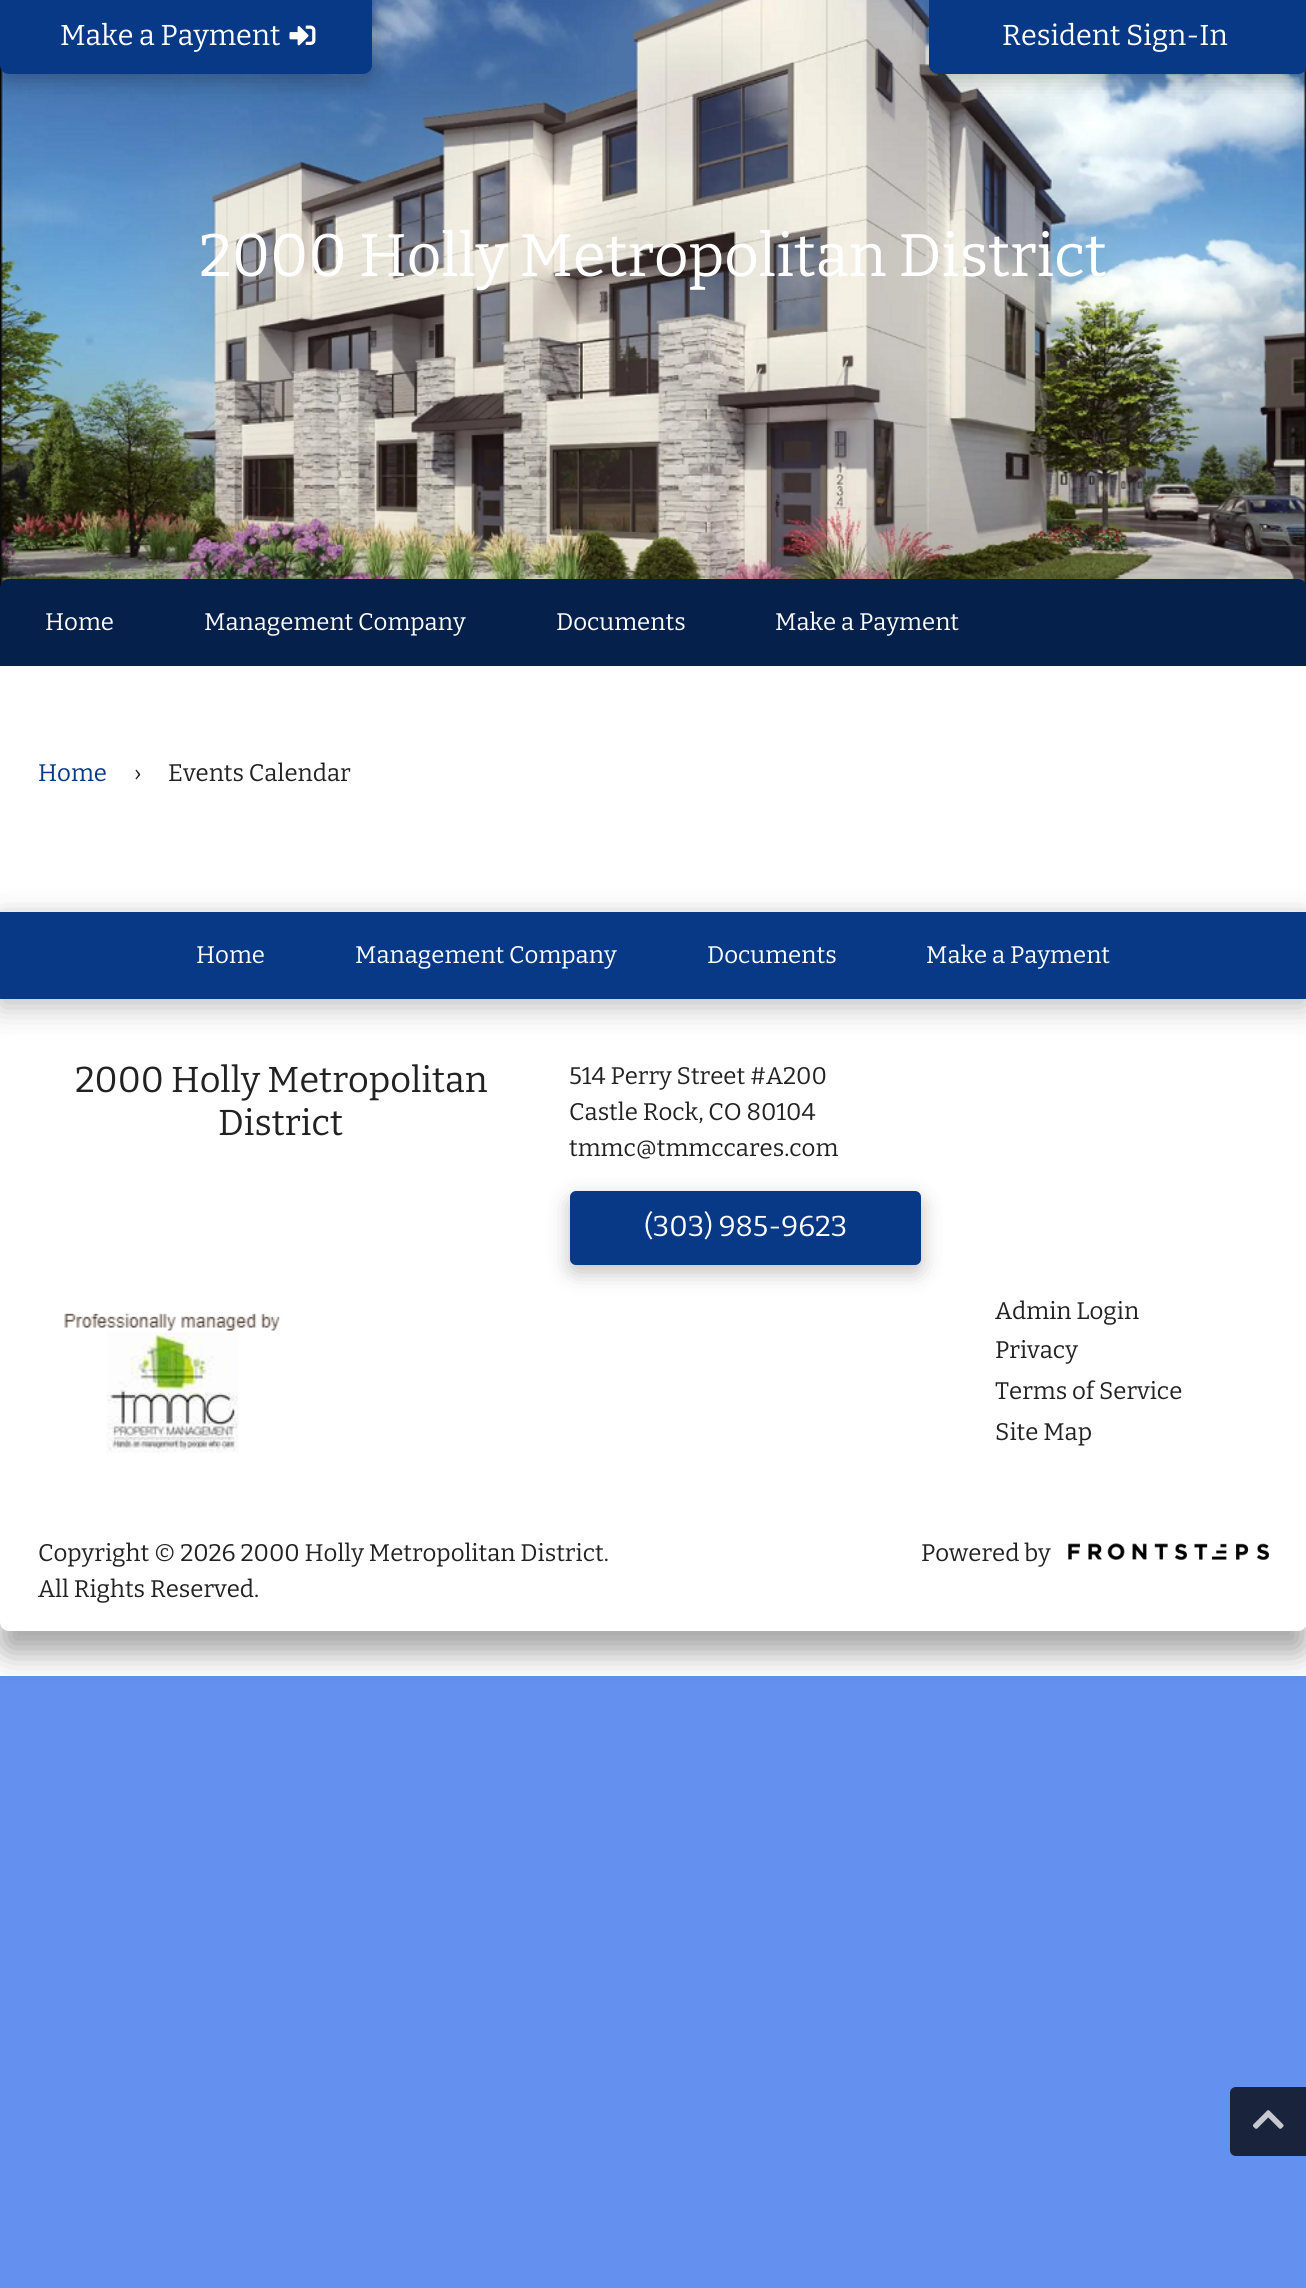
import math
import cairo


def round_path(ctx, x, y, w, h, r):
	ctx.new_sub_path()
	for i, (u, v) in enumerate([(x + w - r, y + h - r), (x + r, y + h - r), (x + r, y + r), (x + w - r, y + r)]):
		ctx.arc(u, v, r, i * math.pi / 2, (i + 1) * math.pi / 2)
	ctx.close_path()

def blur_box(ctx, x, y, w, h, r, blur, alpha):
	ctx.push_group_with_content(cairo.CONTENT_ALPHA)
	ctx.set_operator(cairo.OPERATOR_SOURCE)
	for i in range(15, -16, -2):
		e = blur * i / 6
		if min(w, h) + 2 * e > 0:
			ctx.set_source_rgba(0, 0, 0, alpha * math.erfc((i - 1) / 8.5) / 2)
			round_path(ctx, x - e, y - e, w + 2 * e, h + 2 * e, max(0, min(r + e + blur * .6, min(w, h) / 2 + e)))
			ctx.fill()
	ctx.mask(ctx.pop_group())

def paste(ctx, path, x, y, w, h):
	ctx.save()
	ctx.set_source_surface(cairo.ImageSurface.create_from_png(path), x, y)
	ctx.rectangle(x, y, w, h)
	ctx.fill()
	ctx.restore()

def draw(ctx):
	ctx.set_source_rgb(0.392, 0.565, 0.937)
	ctx.paint()
	paste(ctx, 'media/2.png', 0, 0, 1306, 588)
	ctx.set_source_rgb(0, 0, 0)
	blur_box(ctx, 0, 8, 372, 73, 9, 11, 0.25)
	ctx.set_source_rgb(0.035, 0.224, 0.525)
	ctx.new_path()
	ctx.move_to(0, 0)
	ctx.line_to(372, 0)
	ctx.line_to(372, 65)
	ctx.curve_to(372, 70, 368, 74, 363, 74)
	ctx.line_to(9, 74)
	ctx.curve_to(4, 74, 0, 70, 0, 65)
	ctx.close_path()
	ctx.fill()
	ctx.select_font_face('Bitter')
	ctx.set_font_size(28.75)
	ctx.set_source_rgb(1, 1, 1)
	ctx.move_to(60, 45)
	ctx.show_text('Make a Payment')
	paste(ctx, 'media/1.png', 289, 25, 27, 21)
	ctx.set_source_rgb(0, 0, 0)
	blur_box(ctx, 929, 8, 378, 73, 9, 11, 0.25)
	ctx.set_source_rgb(0.035, 0.224, 0.525)
	ctx.new_path()
	ctx.move_to(929, 0)
	ctx.line_to(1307, 0)
	ctx.line_to(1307, 65)
	ctx.curve_to(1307, 70, 1303, 74, 1298, 74)
	ctx.line_to(938, 74)
	ctx.curve_to(933, 74, 929, 70, 929, 65)
	ctx.close_path()
	ctx.fill()
	ctx.set_source_rgb(1, 1, 1)
	ctx.move_to(1002, 45)
	ctx.show_text('Resident Sign-In')
	ctx.set_font_size(60)
	ctx.move_to(199, 276)
	ctx.show_text('2000 Holly Metropolitan District')
	ctx.set_source_rgb(0.02, 0.125, 0.29)
	ctx.new_path()
	ctx.move_to(9, 579)
	ctx.line_to(1298, 579)
	ctx.curve_to(1303, 579, 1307, 583, 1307, 588)
	ctx.line_to(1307, 666)
	ctx.line_to(0, 666)
	ctx.line_to(0, 588)
	ctx.curve_to(0, 583, 4, 579, 9, 579)
	ctx.close_path()
	ctx.fill()
	ctx.set_font_size(24)
	ctx.set_source_rgb(1, 1, 1)
	for x, y, s in [
		(45, 630, 'Home'),
		(204, 630, 'Management Company'),
		(556, 630, 'Documents'),
		(775, 630, 'Make a Payment'),
	]:
		ctx.move_to(x, y)
		ctx.show_text(s)
	ctx.set_source_rgb(0.098, 0.141, 0.235)
	ctx.new_path()
	ctx.move_to(1236, 2087)
	ctx.line_to(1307, 2087)
	ctx.line_to(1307, 2156)
	ctx.line_to(1236, 2156)
	ctx.curve_to(1232.5, 2156, 1230, 2153.5, 1230, 2150)
	ctx.line_to(1230, 2093)
	ctx.curve_to(1230, 2089.5, 1232.5, 2087, 1236, 2087)
	ctx.close_path()
	ctx.fill()
	paste(ctx, 'media/3.png', 1252, 2110, 32, 19)
	ctx.set_source_rgb(1, 1, 1)
	ctx.rectangle(0, 666, 1306, 246)
	ctx.fill()
	ctx.set_source_rgb(0.035, 0.224, 0.525)
	ctx.move_to(38, 781)
	ctx.show_text('Home')
	ctx.set_source_rgb(0.133, 0.133, 0.133)
	ctx.move_to(134, 781)
	ctx.show_text('›')
	ctx.move_to(168, 781)
	ctx.show_text('Events Calendar')
	ctx.set_source_rgb(1, 1, 1)
	ctx.rectangle(0, 1622, 1306, 54)
	ctx.fill()
	ctx.set_source_rgb(0, 0, 0)
	blur_box(ctx, 0, 935, 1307, 718, 9, 15, 0.35)
	ctx.set_source_rgb(1, 1, 1)
	ctx.new_path()
	ctx.move_to(0, 912)
	ctx.line_to(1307, 912)
	ctx.line_to(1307, 1622)
	ctx.curve_to(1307, 1627, 1303, 1631, 1298, 1631)
	ctx.line_to(9, 1631)
	ctx.curve_to(4, 1631, 0, 1627, 0, 1622)
	ctx.close_path()
	ctx.fill()
	ctx.set_source_rgb(0, 0, 0)
	blur_box(ctx, 0, 920, 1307, 87, 0, 15, 0.25)
	ctx.set_source_rgb(0.035, 0.224, 0.525)
	ctx.rectangle(0, 912, 1306, 87)
	ctx.fill()
	ctx.set_source_rgb(1, 1, 1)
	for x, y, s in [
		(196, 963, 'Home'),
		(355, 963, 'Management Company'),
		(707, 963, 'Documents'),
		(926, 963, 'Make a Payment'),
	]:
		ctx.move_to(x, y)
		ctx.show_text(s)
	ctx.set_font_size(36)
	ctx.set_source_rgb(0.133, 0.133, 0.133)
	ctx.move_to(75, 1092)
	ctx.show_text('2000 Holly Metropolitan')
	ctx.move_to(218, 1135)
	ctx.show_text('District')
	ctx.set_font_size(24)
	for x, y, s in [
		(569, 1084, '514 Perry Street #A200'),
		(569, 1120, 'Castle Rock, CO 80104'),
		(569, 1156, 'tmmc@tmmccares.com'),
	]:
		ctx.move_to(x, y)
		ctx.show_text(s)
	ctx.set_source_rgb(0, 0, 0)
	blur_box(ctx, 570, 1199, 351, 73, 6, 11, 0.25)
	ctx.set_source_rgb(0.035, 0.224, 0.525)
	round_path(ctx, 570, 1191, 351, 74, 6)
	ctx.fill()
	ctx.set_font_size(28.75)
	ctx.set_source_rgb(1, 1, 1)
	ctx.move_to(644, 1236)
	ctx.show_text('(303) 985-9623')
	paste(ctx, 'media/4.png', 64, 1313, 217, 140)
	ctx.set_font_size(24)
	ctx.set_source_rgb(0.133, 0.133, 0.133)
	for x, y, s in [
		(995, 1319, 'Admin Login'),
		(995, 1358, 'Privacy'),
		(995, 1399, 'Terms of Service'),
		(995, 1440, 'Site Map'),
		(38, 1561, 'Copyright © 2026 2000 Holly Metropolitan District.'),
		(38, 1597, 'All Rights Reserved.'),
		(921, 1561, 'Powered by'),
	]:
		ctx.move_to(x, y)
		ctx.show_text(s)
	paste(ctx, 'media/5.png', 1068, 1543, 201, 17)


surface = cairo.ImageSurface(cairo.FORMAT_RGB24, 1306, 2288)
ctx = cairo.Context(surface)
options = cairo.FontOptions()
options.set_hint_metrics(cairo.HINT_METRICS_OFF)
options.set_hint_style(cairo.HINT_STYLE_NONE)
ctx.set_font_options(options)
ctx.set_miter_limit(4)
draw(ctx)
surface.write_to_png('image.png')
